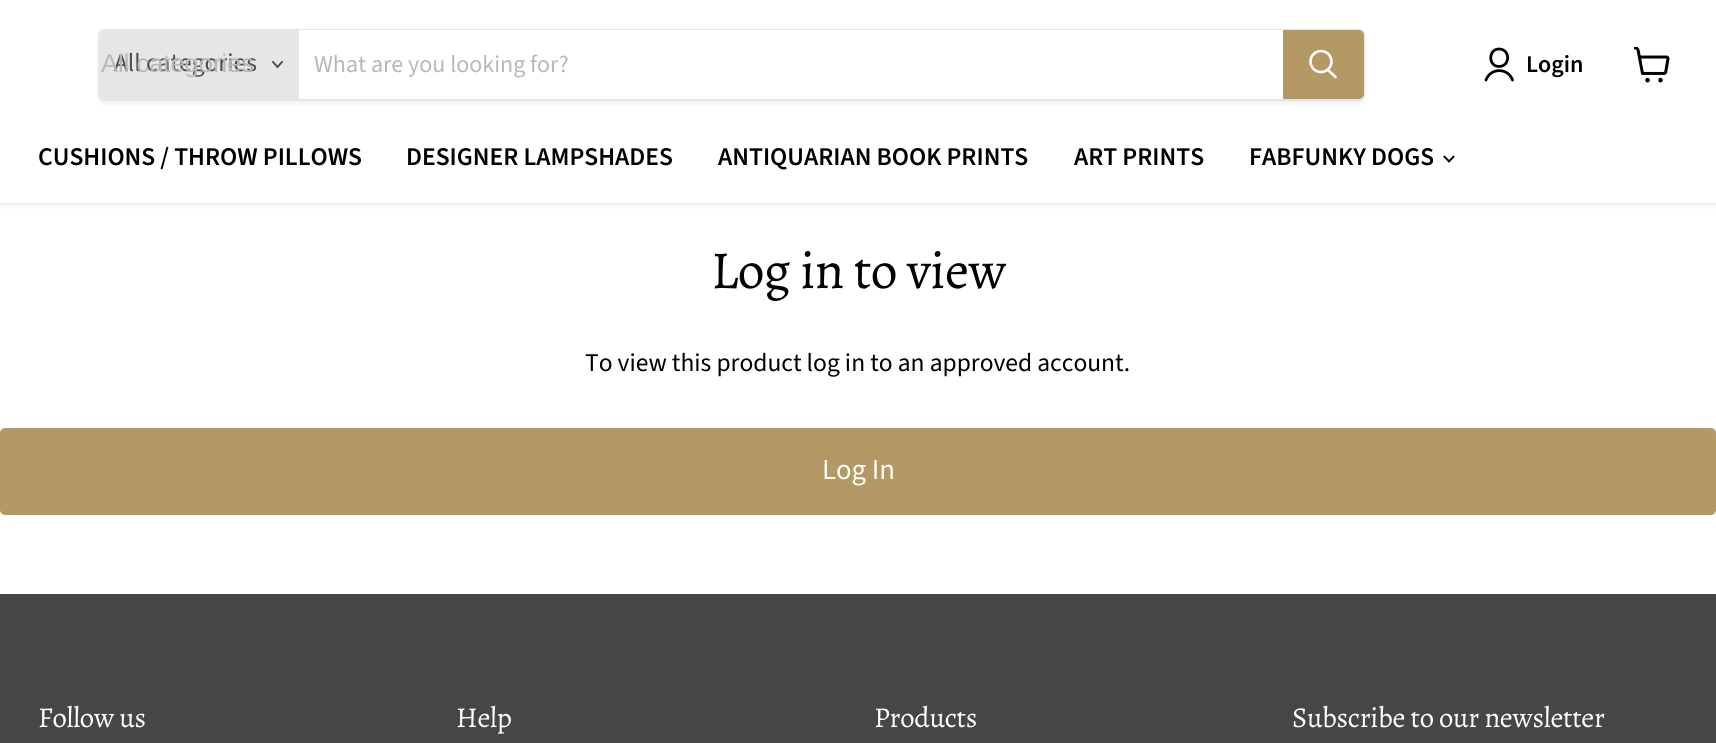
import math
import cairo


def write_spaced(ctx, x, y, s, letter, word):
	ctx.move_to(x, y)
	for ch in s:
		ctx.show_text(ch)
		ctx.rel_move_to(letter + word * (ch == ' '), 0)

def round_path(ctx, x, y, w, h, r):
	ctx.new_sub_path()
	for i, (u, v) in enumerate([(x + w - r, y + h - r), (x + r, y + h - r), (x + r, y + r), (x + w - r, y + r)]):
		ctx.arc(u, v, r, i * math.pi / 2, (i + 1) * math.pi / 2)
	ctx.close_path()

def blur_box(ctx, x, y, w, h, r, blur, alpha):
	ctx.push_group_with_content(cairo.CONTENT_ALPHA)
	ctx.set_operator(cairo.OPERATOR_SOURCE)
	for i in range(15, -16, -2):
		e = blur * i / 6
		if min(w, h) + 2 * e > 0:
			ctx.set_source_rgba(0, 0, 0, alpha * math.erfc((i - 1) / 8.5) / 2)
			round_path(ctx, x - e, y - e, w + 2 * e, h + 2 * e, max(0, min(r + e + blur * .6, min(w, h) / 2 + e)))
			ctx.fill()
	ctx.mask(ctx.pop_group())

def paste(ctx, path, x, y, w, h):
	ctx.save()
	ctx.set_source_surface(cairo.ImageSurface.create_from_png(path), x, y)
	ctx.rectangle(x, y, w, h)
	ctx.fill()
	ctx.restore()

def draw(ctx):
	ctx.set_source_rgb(1, 1, 1)
	ctx.paint()
	ctx.set_source_rgb(0.502, 0.502, 0.502)
	blur_box(ctx, 0, 2, 1716, 202, 0, 3, 0.25)
	ctx.set_source_rgb(1, 1, 1)
	ctx.rectangle(0, 0, 1716, 203)
	ctx.fill()
	ctx.save()
	ctx.set_fill_rule(cairo.FILL_RULE_EVEN_ODD)
	ctx.new_path()
	ctx.move_to(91, 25)
	ctx.line_to(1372, 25)
	ctx.line_to(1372, 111)
	ctx.line_to(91, 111)
	ctx.close_path()
	ctx.move_to(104, 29)
	ctx.line_to(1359, 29)
	ctx.curve_to(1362.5, 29, 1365, 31.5, 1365, 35)
	ctx.line_to(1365, 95)
	ctx.curve_to(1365, 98.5, 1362.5, 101, 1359, 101)
	ctx.line_to(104, 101)
	ctx.curve_to(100.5, 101, 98, 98.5, 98, 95)
	ctx.line_to(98, 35)
	ctx.curve_to(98, 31.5, 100.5, 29, 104, 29)
	ctx.close_path()
	ctx.clip()
	ctx.set_source_rgb(0.502, 0.502, 0.502)
	blur_box(ctx, 98, 32, 1267, 72, 6, 2, 0.11)
	ctx.restore()
	round_path(ctx, 99, 30, 1265, 70, 5)
	ctx.set_source_rgba(0.502, 0.502, 0.502, 0.2)
	ctx.stroke()
	ctx.set_source_rgb(0.902, 0.902, 0.902)
	ctx.new_path()
	ctx.move_to(104, 30)
	ctx.line_to(299, 30)
	ctx.line_to(299, 99)
	ctx.line_to(104, 99)
	ctx.curve_to(101, 99, 99, 97, 99, 94)
	ctx.line_to(99, 35)
	ctx.curve_to(99, 32, 101, 30, 104, 30)
	ctx.close_path()
	ctx.fill()
	ctx.select_font_face('Source Sans Pro')
	ctx.set_font_size(25.5)
	ctx.set_source_rgb(0.302, 0.302, 0.302)
	ctx.move_to(114, 71)
	ctx.show_text('All categories')
	ctx.select_font_face('Liberation Sans')
	ctx.set_source_rgb(0.722, 0.722, 0.722)
	ctx.move_to(101, 72)
	ctx.show_text('All categories')
	ctx.new_path()
	ctx.move_to(277.5, 67)
	ctx.line_to(282, 62)
	ctx.move_to(277.5, 67)
	ctx.line_to(273, 62)
	ctx.set_source_rgb(0.302, 0.302, 0.302)
	ctx.set_line_width(1.9)
	ctx.set_line_cap(cairo.LINE_CAP_SQUARE)
	ctx.stroke()
	ctx.set_source_rgb(1, 1, 1)
	ctx.rectangle(299, 30, 984, 1)
	ctx.fill()
	ctx.select_font_face('Source Sans Pro')
	ctx.set_font_size(24)
	ctx.set_source_rgb(0.722, 0.722, 0.722)
	ctx.move_to(314, 72)
	ctx.show_text('What are you looking for?')
	ctx.set_source_rgb(0.702, 0.6, 0.392)
	ctx.new_path()
	ctx.move_to(1284, 31)
	ctx.line_to(1359, 31)
	ctx.curve_to(1361, 31, 1363, 33, 1363, 35)
	ctx.line_to(1363, 94)
	ctx.curve_to(1363, 96, 1361, 98, 1359, 98)
	ctx.line_to(1284, 98)
	ctx.close_path()
	ctx.fill_preserve()
	ctx.set_line_width(2)
	ctx.set_line_cap(cairo.LINE_CAP_BUTT)
	ctx.stroke()
	ctx.new_path()
	ctx.move_to(1335.5, 77)
	ctx.line_to(1328, 70)
	ctx.set_source_rgb(1, 1, 1)
	ctx.set_line_width(2.6)
	ctx.set_line_cap(cairo.LINE_CAP_ROUND)
	ctx.stroke()
	ctx.save()
	ctx.rectangle(1308, 50, 30, 31)
	ctx.clip()
	ctx.arc(1321, 61.5, 10.5, 0, 2 * math.pi)
	ctx.set_line_cap(cairo.LINE_CAP_BUTT)
	ctx.stroke()
	ctx.restore()
	ctx.new_path()
	ctx.move_to(1499, 66.5)
	ctx.curve_to(1510.5, 66.5, 1510.5, 49, 1499, 49)
	ctx.curve_to(1488, 49, 1488, 66.5, 1499, 66.5)
	ctx.close_path()
	ctx.move_to(1512.5, 80)
	ctx.curve_to(1508, 67.5, 1490.5, 67.5, 1486, 80)
	ctx.set_source_rgb(0, 0, 0)
	ctx.set_line_width(2.8)
	ctx.set_line_join(cairo.LINE_JOIN_ROUND)
	ctx.stroke()
	ctx.select_font_face('Source Sans Pro SemiBold')
	ctx.move_to(1526, 72)
	ctx.show_text('Login')
	paste(ctx, 'media/1.png', 1634, 47, 36, 36)
	ctx.set_font_size(25.5)
	for x, y, s in [
		(38, 165, 'CUSHIONS / THROW PILLOWS'),
		(406, 165, 'DESIGNER LAMPSHADES'),
		(718, 165, 'ANTIQUARIAN BOOK PRINTS'),
		(1074, 165, 'ART PRINTS'),
		(1249, 165, 'FABFUNKY DOGS'),
	]:
		ctx.move_to(x, y)
		ctx.show_text(s)
	paste(ctx, 'media/2.png', 1443, 155, 12, 8)
	ctx.select_font_face('Alegreya')
	ctx.set_font_size(53.5)
	write_spaced(ctx, 711, 288, 'Log in to view', -0.5, 0)
	ctx.select_font_face('Source Sans Pro')
	ctx.set_font_size(25.5)
	ctx.move_to(585, 371)
	ctx.show_text('To view this product log in to an approved account.')
	ctx.set_source_rgb(0.702, 0.6, 0.392)
	round_path(ctx, 1, 429, 1714, 85, 4)
	ctx.fill_preserve()
	ctx.set_line_width(2)
	ctx.set_line_cap(cairo.LINE_CAP_BUTT)
	ctx.set_line_join(cairo.LINE_JOIN_MITER)
	ctx.stroke()
	ctx.set_font_size(28.75)
	ctx.set_source_rgb(1, 1, 1)
	ctx.move_to(822, 479)
	ctx.show_text('Log In')
	ctx.set_source_rgb(0.275, 0.275, 0.275)
	ctx.rectangle(0, 594, 1716, 149)
	ctx.fill()
	ctx.select_font_face('Alegreya')
	ctx.set_source_rgb(1, 1, 1)
	for x, y, s in [
		(38, 727, 'Follow us'),
		(456, 727, 'Help'),
		(874, 727, 'Products'),
		(1292, 727, 'Subscribe to our newsletter'),
	]:
		write_spaced(ctx, x, y, s, -0.3, 0)


surface = cairo.ImageSurface(cairo.FORMAT_RGB24, 1716, 743)
ctx = cairo.Context(surface)
options = cairo.FontOptions()
options.set_hint_metrics(cairo.HINT_METRICS_OFF)
options.set_hint_style(cairo.HINT_STYLE_NONE)
ctx.set_font_options(options)
ctx.set_miter_limit(4)
draw(ctx)
surface.write_to_png('image.png')
